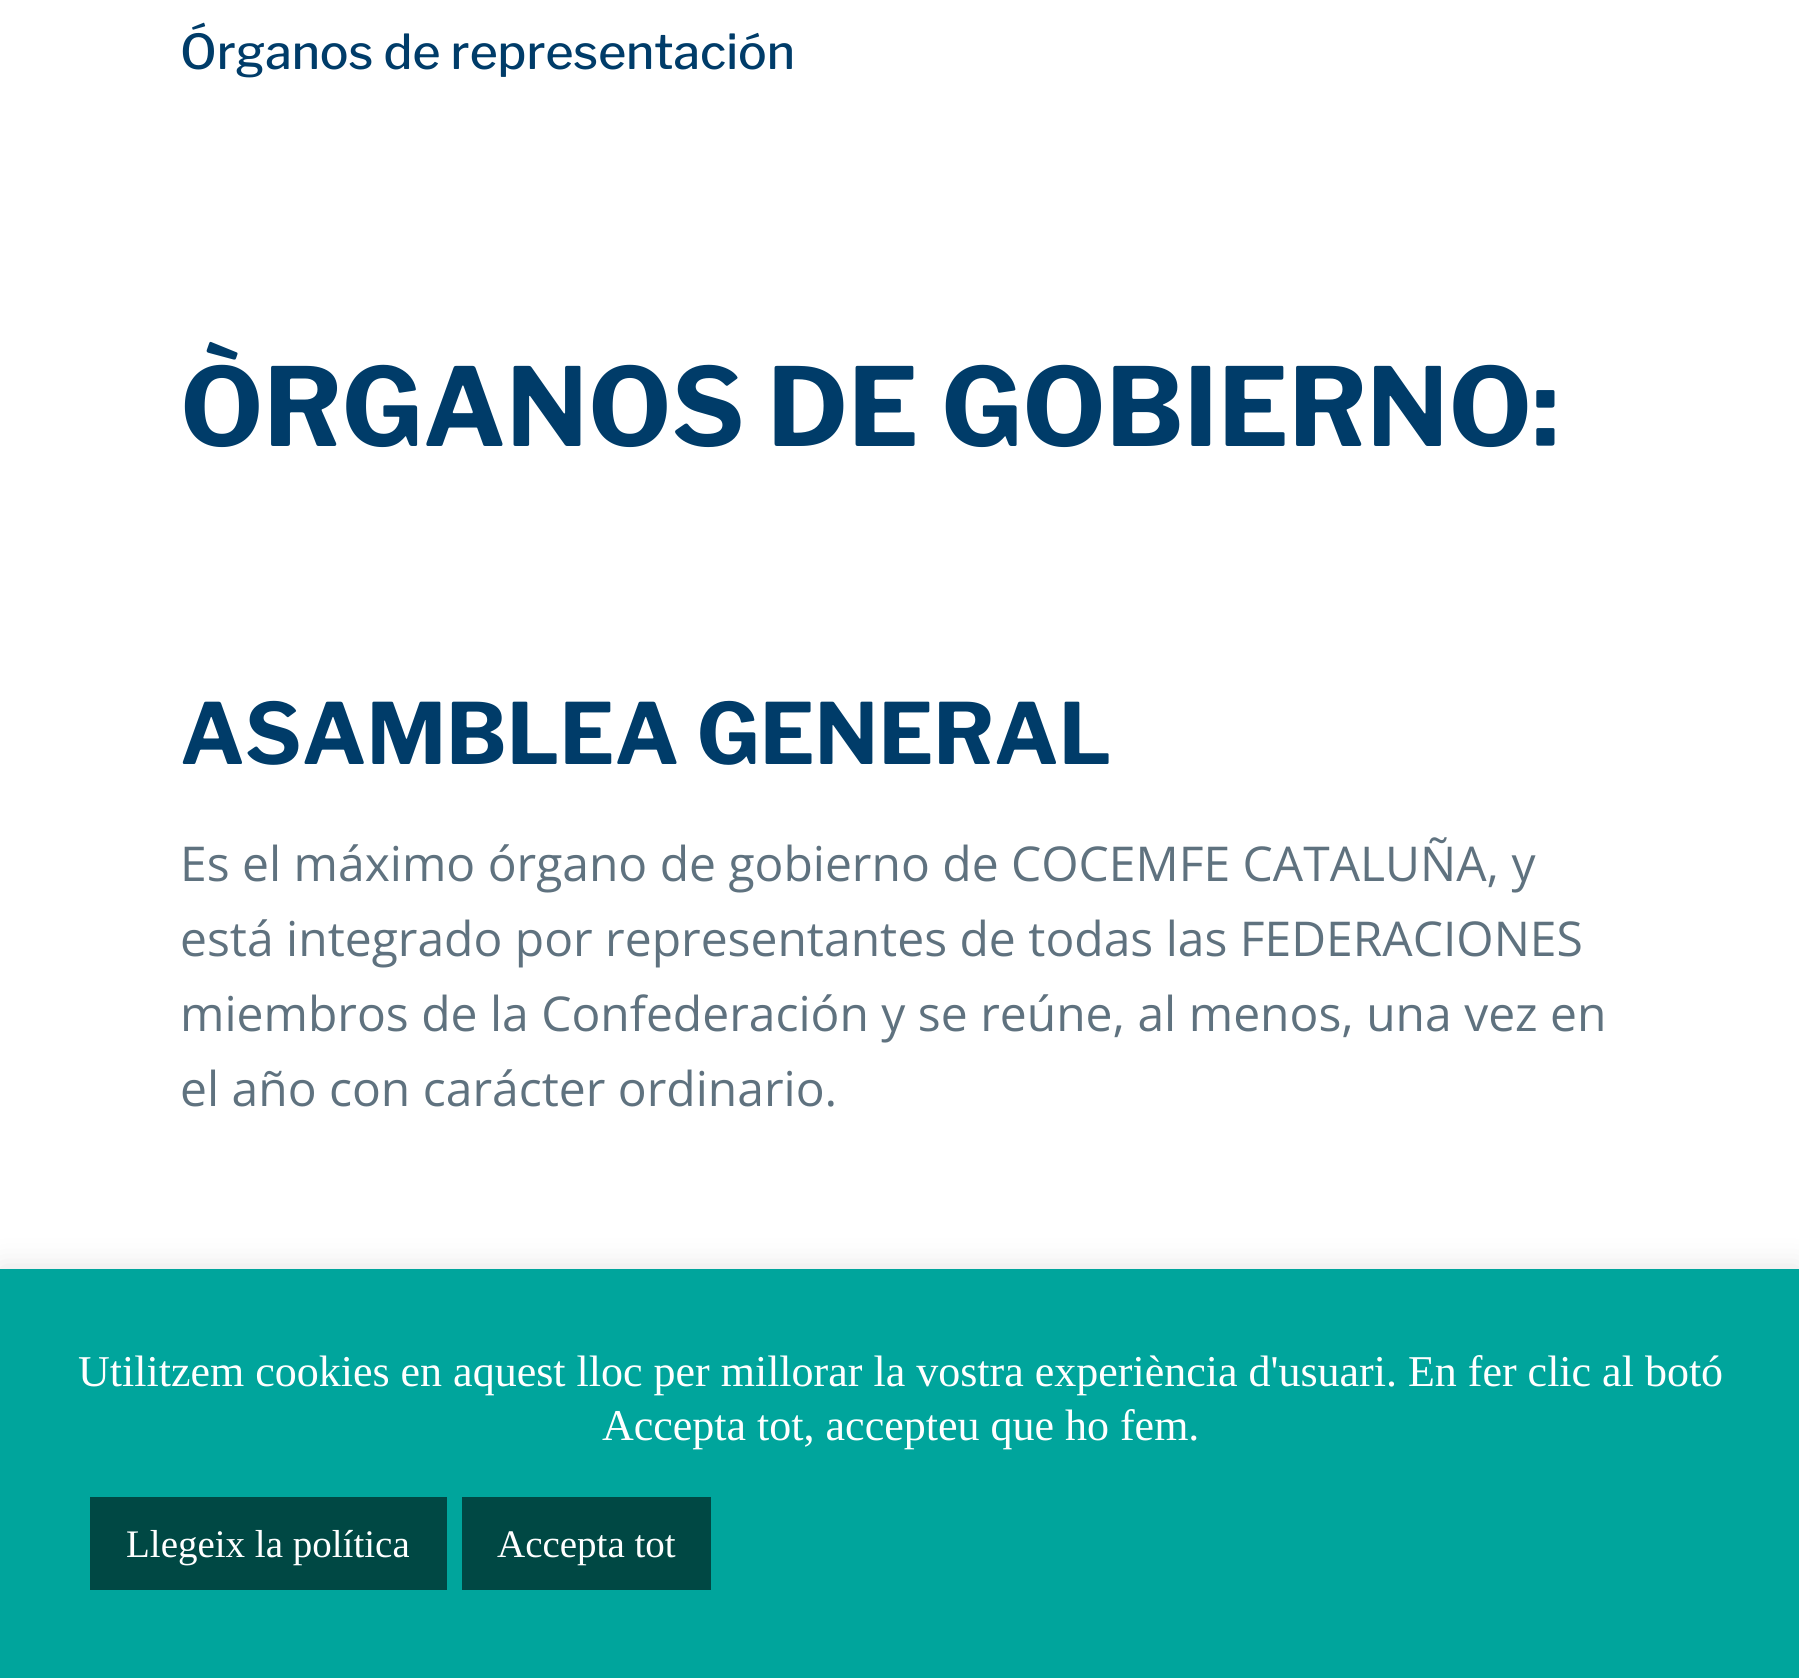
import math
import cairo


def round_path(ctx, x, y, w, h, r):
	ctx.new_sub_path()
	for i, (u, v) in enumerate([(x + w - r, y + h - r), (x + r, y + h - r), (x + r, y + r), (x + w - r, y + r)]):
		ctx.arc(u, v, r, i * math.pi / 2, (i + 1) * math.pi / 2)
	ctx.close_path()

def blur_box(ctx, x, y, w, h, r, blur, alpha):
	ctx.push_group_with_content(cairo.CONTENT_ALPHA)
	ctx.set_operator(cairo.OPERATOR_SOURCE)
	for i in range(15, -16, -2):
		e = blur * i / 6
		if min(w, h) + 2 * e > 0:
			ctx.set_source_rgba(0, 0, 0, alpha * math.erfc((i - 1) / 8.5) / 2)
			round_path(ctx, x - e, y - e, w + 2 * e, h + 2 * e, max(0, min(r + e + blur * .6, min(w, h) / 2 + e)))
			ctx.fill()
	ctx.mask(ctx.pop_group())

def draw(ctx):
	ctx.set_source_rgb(1, 1, 1)
	ctx.paint()
	ctx.select_font_face('Libre Franklin Medium')
	ctx.set_font_size(48)
	ctx.set_source_rgb(0, 0.235, 0.412)
	ctx.move_to(180, 69)
	ctx.show_text('Órganos de representación')
	ctx.select_font_face('Libre Franklin', cairo.FONT_SLANT_NORMAL, cairo.FONT_WEIGHT_BOLD)
	ctx.set_font_size(108)
	ctx.move_to(180, 446)
	ctx.show_text('ÒRGANOS DE GOBIERNO:')
	ctx.set_font_size(84)
	ctx.move_to(180, 764)
	ctx.show_text('ASAMBLEA GENERAL')
	ctx.select_font_face('Open Sans')
	ctx.set_font_size(48)
	ctx.set_source_rgb(0.373, 0.447, 0.498)
	for x, y, s in [
		(180, 881, 'Es el máximo órgano de gobierno de COCEMFE CATALUÑA, y'),
		(180, 956, 'está integrado por representantes de todas las FEDERACIONES'),
		(180, 1031, 'miembros de la Confederación y se reúne, al menos, una vez en'),
		(180, 1106, 'el año con carácter ordinario.'),
	]:
		ctx.move_to(x, y)
		ctx.show_text(s)
	ctx.set_source_rgb(0.675, 0.671, 0.671)
	blur_box(ctx, 0, 1266, 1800, 411, 0, 15, 0.3)
	ctx.set_source_rgb(0, 0.647, 0.612)
	ctx.rectangle(0, 1269, 1799, 409)
	ctx.fill()
	ctx.select_font_face('Liberation Serif')
	ctx.set_font_size(44)
	ctx.set_source_rgb(1, 1, 1)
	ctx.move_to(78, 1386)
	ctx.show_text('Utilitzem cookies en aquest lloc per millorar la vostra experiència d\'usuari. En fer clic al botó')
	ctx.move_to(602, 1440)
	ctx.show_text('Accepta tot, accepteu que ho fem.')
	ctx.set_source_rgb(0, 0.282, 0.267)
	ctx.rectangle(90, 1497, 357, 93)
	ctx.fill()
	ctx.set_font_size(39)
	ctx.set_source_rgb(1, 1, 1)
	ctx.move_to(126, 1557)
	ctx.show_text('Llegeix la política')
	ctx.set_source_rgb(0, 0.282, 0.267)
	ctx.rectangle(462, 1497, 249, 93)
	ctx.fill()
	ctx.set_source_rgb(1, 1, 1)
	ctx.move_to(497, 1557)
	ctx.show_text('Accepta tot')


surface = cairo.ImageSurface(cairo.FORMAT_RGB24, 1799, 1678)
ctx = cairo.Context(surface)
options = cairo.FontOptions()
options.set_hint_metrics(cairo.HINT_METRICS_OFF)
options.set_hint_style(cairo.HINT_STYLE_NONE)
ctx.set_font_options(options)
ctx.set_miter_limit(4)
draw(ctx)
surface.write_to_png('image.png')
